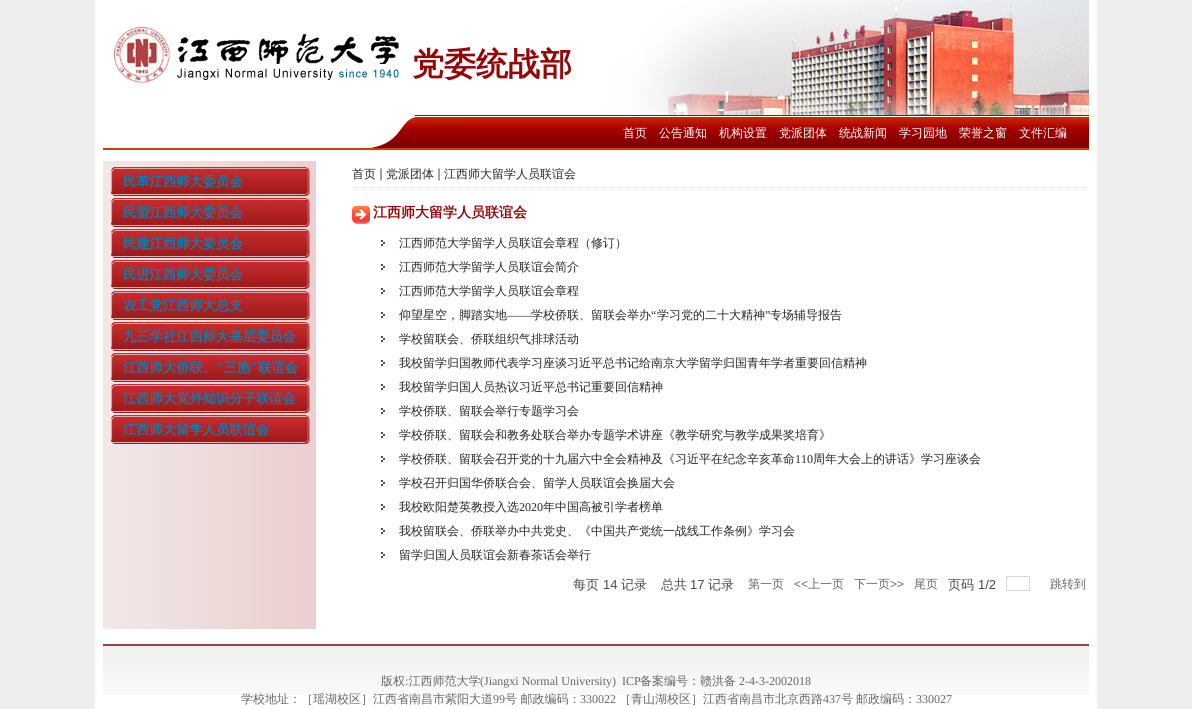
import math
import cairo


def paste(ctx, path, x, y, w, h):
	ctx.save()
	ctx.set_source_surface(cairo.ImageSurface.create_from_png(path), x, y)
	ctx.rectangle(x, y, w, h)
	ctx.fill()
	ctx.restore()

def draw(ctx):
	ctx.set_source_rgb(0.933, 0.933, 0.933)
	ctx.paint()
	ctx.set_source_rgb(1, 1, 1)
	ctx.rectangle(95, 0, 1002, 709)
	ctx.fill()
	paste(ctx, 'media/1.png', 114, 0, 975, 115)
	ctx.select_font_face('WenQuanYi Zen Hei', cairo.FONT_SLANT_NORMAL, cairo.FONT_WEIGHT_BOLD)
	ctx.set_font_size(32)
	ctx.set_source_rgb(0.588, 0.02, 0.031)
	ctx.move_to(412, 75)
	ctx.show_text('党委统战部')
	paste(ctx, 'media/2.png', 103, 115, 986, 35)
	ctx.select_font_face('WenQuanYi Zen Hei Medium')
	ctx.set_font_size(12)
	ctx.set_source_rgb(1, 1, 1)
	for x, y, s in [
		(623, 137, '首页'),
		(659, 137, '公告通知'),
		(719, 137, '机构设置'),
		(779, 137, '党派团体'),
		(839, 137, '统战新闻'),
		(899, 137, '学习园地'),
		(959, 137, '荣誉之窗'),
		(1019, 137, '文件汇编'),
	]:
		ctx.move_to(x, y)
		ctx.show_text(s)
	paste(ctx, 'media/3.png', 103, 161, 213, 468)
	paste(ctx, 'media/4.png', 111, 167, 199, 29)
	ctx.select_font_face('WenQuanYi Zen Hei', cairo.FONT_SLANT_NORMAL, cairo.FONT_WEIGHT_BOLD)
	ctx.set_font_size(13.3)
	ctx.set_source_rgb(0.055, 0.494, 0.69)
	ctx.move_to(123, 186)
	ctx.show_text('民革江西师大委员会')
	paste(ctx, 'media/4.png', 111, 198, 199, 29)
	ctx.move_to(123, 217)
	ctx.show_text('民盟江西师大委员会')
	paste(ctx, 'media/4.png', 111, 229, 199, 29)
	ctx.move_to(123, 248)
	ctx.show_text('民建江西师大委员会')
	paste(ctx, 'media/4.png', 111, 260, 199, 29)
	ctx.move_to(123, 279)
	ctx.show_text('民进江西师大委员会')
	paste(ctx, 'media/4.png', 111, 291, 199, 29)
	ctx.move_to(123, 310)
	ctx.show_text('农工党江西师大总支')
	paste(ctx, 'media/4.png', 111, 322, 199, 29)
	ctx.move_to(123, 341)
	ctx.show_text('九三学社江西师大基层委员会')
	paste(ctx, 'media/4.png', 111, 353, 199, 29)
	ctx.move_to(123, 372)
	ctx.show_text('江西师大侨联、')
	ctx.select_font_face('Liberation Serif', cairo.FONT_SLANT_NORMAL, cairo.FONT_WEIGHT_BOLD)
	ctx.move_to(216, 372)
	ctx.show_text('"')
	ctx.select_font_face('WenQuanYi Zen Hei', cairo.FONT_SLANT_NORMAL, cairo.FONT_WEIGHT_BOLD)
	ctx.move_to(224, 372)
	ctx.show_text('三胞')
	ctx.select_font_face('Liberation Serif', cairo.FONT_SLANT_NORMAL, cairo.FONT_WEIGHT_BOLD)
	ctx.move_to(250, 372)
	ctx.show_text('"')
	ctx.select_font_face('WenQuanYi Zen Hei', cairo.FONT_SLANT_NORMAL, cairo.FONT_WEIGHT_BOLD)
	ctx.move_to(258, 372)
	ctx.show_text('联谊会')
	paste(ctx, 'media/4.png', 111, 384, 199, 29)
	ctx.move_to(123, 403)
	ctx.show_text('江西师大党外知识分子联谊会')
	paste(ctx, 'media/4.png', 111, 415, 199, 29)
	ctx.move_to(123, 434)
	ctx.show_text('江西师大留学人员联谊会')
	ctx.select_font_face('WenQuanYi Zen Hei Medium')
	ctx.set_font_size(12)
	ctx.set_source_rgb(0.149, 0.149, 0.149)
	ctx.move_to(352, 178)
	ctx.show_text('首页')
	paste(ctx, 'media/5.png', 380, 168, 2, 13)
	ctx.move_to(386, 178)
	ctx.show_text('党派团体')
	paste(ctx, 'media/5.png', 438, 168, 2, 13)
	ctx.move_to(444, 178)
	ctx.show_text('江西师大留学人员联谊会')
	paste(ctx, 'media/6.png', 353, 187, 735, 1)
	paste(ctx, 'media/7.png', 352, 206, 18, 18)
	ctx.select_font_face('WenQuanYi Zen Hei', cairo.FONT_SLANT_NORMAL, cairo.FONT_WEIGHT_BOLD)
	ctx.set_font_size(14)
	ctx.set_source_rgb(0.588, 0.02, 0.031)
	ctx.move_to(373, 217)
	ctx.show_text('江西师大留学人员联谊会')
	paste(ctx, 'media/8.png', 381, 240, 4, 6)
	ctx.select_font_face('WenQuanYi Zen Hei Medium')
	ctx.set_font_size(12)
	ctx.set_source_rgb(0.149, 0.149, 0.149)
	ctx.move_to(399, 247)
	ctx.show_text('江西师范大学留学人员联谊会章程（修订）')
	paste(ctx, 'media/8.png', 381, 264, 4, 6)
	ctx.move_to(399, 271)
	ctx.show_text('江西师范大学留学人员联谊会简介')
	paste(ctx, 'media/8.png', 381, 288, 4, 6)
	ctx.move_to(399, 295)
	ctx.show_text('江西师范大学留学人员联谊会章程')
	paste(ctx, 'media/8.png', 381, 312, 4, 6)
	ctx.move_to(399, 319)
	ctx.show_text('仰望星空，脚踏实地')
	ctx.select_font_face('Liberation Serif')
	ctx.move_to(507, 319)
	ctx.show_text('——')
	ctx.select_font_face('WenQuanYi Zen Hei Medium')
	ctx.move_to(531, 319)
	ctx.show_text('学校侨联、留联会举办')
	ctx.select_font_face('Liberation Serif')
	ctx.move_to(651, 319)
	ctx.show_text('“')
	ctx.select_font_face('WenQuanYi Zen Hei Medium')
	ctx.move_to(657, 319)
	ctx.show_text('学习党的二十大精神')
	ctx.select_font_face('Liberation Serif')
	ctx.move_to(765, 319)
	ctx.show_text('”')
	ctx.select_font_face('WenQuanYi Zen Hei Medium')
	ctx.move_to(770, 319)
	ctx.show_text('专场辅导报告')
	paste(ctx, 'media/8.png', 381, 336, 4, 6)
	ctx.move_to(399, 343)
	ctx.show_text('学校留联会、侨联组织气排球活动')
	paste(ctx, 'media/8.png', 381, 360, 4, 6)
	ctx.move_to(399, 367)
	ctx.show_text('我校留学归国教师代表学习座谈习近平总书记给南京大学留学归国青年学者重要回信精神')
	paste(ctx, 'media/8.png', 381, 384, 4, 6)
	ctx.move_to(399, 391)
	ctx.show_text('我校留学归国人员热议习近平总书记重要回信精神')
	paste(ctx, 'media/8.png', 381, 408, 4, 6)
	ctx.move_to(399, 415)
	ctx.show_text('学校侨联、留联会举行专题学习会')
	paste(ctx, 'media/8.png', 381, 432, 4, 6)
	ctx.move_to(399, 439)
	ctx.show_text('学校侨联、留联会和教务处联合举办专题学术讲座《教学研究与教学成果奖培育》')
	paste(ctx, 'media/8.png', 381, 456, 4, 6)
	ctx.move_to(399, 463)
	ctx.show_text('学校侨联、留联会召开党的十九届六中全会精神及《习近平在纪念辛亥革命')
	ctx.select_font_face('Liberation Serif')
	ctx.move_to(795, 463)
	ctx.show_text('110')
	ctx.select_font_face('WenQuanYi Zen Hei Medium')
	ctx.move_to(813, 463)
	ctx.show_text('周年大会上的讲话》学习座谈会')
	paste(ctx, 'media/8.png', 381, 480, 4, 6)
	ctx.move_to(399, 487)
	ctx.show_text('学校召开归国华侨联合会、留学人员联谊会换届大会')
	paste(ctx, 'media/8.png', 381, 504, 4, 6)
	ctx.move_to(399, 511)
	ctx.show_text('我校欧阳楚英教授入选')
	ctx.select_font_face('Liberation Serif')
	ctx.move_to(519, 511)
	ctx.show_text('2020')
	ctx.select_font_face('WenQuanYi Zen Hei Medium')
	ctx.move_to(543, 511)
	ctx.show_text('年中国高被引学者榜单')
	paste(ctx, 'media/8.png', 381, 528, 4, 6)
	ctx.move_to(399, 535)
	ctx.show_text('我校留联会、侨联举办中共党史、《中国共产党统一战线工作条例》学习会')
	paste(ctx, 'media/8.png', 381, 552, 4, 6)
	ctx.move_to(399, 559)
	ctx.show_text('留学归国人员联谊会新春茶话会举行')
	ctx.set_font_size(13)
	ctx.set_source_rgb(0.286, 0.286, 0.286)
	ctx.move_to(573, 589)
	ctx.show_text('每页')
	ctx.select_font_face('Liberation Sans')
	ctx.move_to(603, 589)
	ctx.show_text('14')
	ctx.select_font_face('WenQuanYi Zen Hei Medium')
	ctx.move_to(621, 589)
	ctx.show_text('记录')
	ctx.move_to(661, 589)
	ctx.show_text('总共')
	ctx.select_font_face('Liberation Sans')
	ctx.move_to(690, 589)
	ctx.show_text('17')
	ctx.select_font_face('WenQuanYi Zen Hei Medium')
	ctx.move_to(708, 589)
	ctx.show_text('记录')
	ctx.set_font_size(12)
	ctx.set_source_rgb(0.4, 0.4, 0.4)
	ctx.move_to(748, 588)
	ctx.show_text('第一页')
	ctx.select_font_face('Liberation Sans')
	ctx.move_to(794, 588)
	ctx.show_text('<<')
	ctx.select_font_face('WenQuanYi Zen Hei Medium')
	ctx.move_to(808, 588)
	ctx.show_text('上一页')
	ctx.move_to(854, 588)
	ctx.show_text('下一页')
	ctx.select_font_face('Liberation Sans')
	ctx.move_to(890, 588)
	ctx.show_text('>>')
	ctx.select_font_face('WenQuanYi Zen Hei Medium')
	ctx.move_to(914, 588)
	ctx.show_text('尾页')
	ctx.set_font_size(13)
	ctx.set_source_rgb(0.286, 0.286, 0.286)
	ctx.move_to(948, 589)
	ctx.show_text('页码')
	ctx.select_font_face('Liberation Sans')
	ctx.move_to(978, 589)
	ctx.show_text('1/2')
	ctx.rectangle(1006.5, 576.5, 23, 14)
	ctx.set_source_rgb(0.835, 0.835, 0.835)
	ctx.set_line_width(1)
	ctx.stroke()
	ctx.select_font_face('WenQuanYi Zen Hei Medium')
	ctx.set_font_size(12)
	ctx.set_source_rgb(0.4, 0.4, 0.4)
	ctx.move_to(1050, 588)
	ctx.show_text('跳转到')
	paste(ctx, 'media/9.png', 103, 644, 986, 51)
	ctx.move_to(381, 685)
	ctx.show_text('版权 江西师范大学')
	ctx.select_font_face('Liberation Serif')
	ctx.move_to(480, 685)
	ctx.show_text('(Jiangxi Normal University)  ICP')
	ctx.select_font_face('WenQuanYi Zen Hei Medium')
	ctx.move_to(640, 685)
	ctx.show_text('备案编号：赣洪备')
	ctx.select_font_face('Liberation Serif')
	ctx.move_to(739, 685)
	ctx.show_text('2-4-3-2002018')
	ctx.move_to(405, 685)
	ctx.show_text(':')
	ctx.select_font_face('WenQuanYi Zen Hei Medium')
	ctx.move_to(241, 703)
	ctx.show_text('学校地址：［瑶湖校区］江西省南昌市紫阳大道')
	ctx.select_font_face('Liberation Serif')
	ctx.move_to(493, 703)
	ctx.show_text('99')
	ctx.select_font_face('WenQuanYi Zen Hei Medium')
	ctx.move_to(505, 703)
	ctx.show_text('号 邮政编码：')
	ctx.select_font_face('Liberation Serif')
	ctx.move_to(580, 703)
	ctx.show_text('330022')
	ctx.select_font_face('WenQuanYi Zen Hei Medium')
	ctx.move_to(619, 703)
	ctx.show_text('［青山湖校区］江西省南昌市北京西路')
	ctx.select_font_face('Liberation Serif')
	ctx.move_to(823, 703)
	ctx.show_text('437')
	ctx.select_font_face('WenQuanYi Zen Hei Medium')
	ctx.move_to(841, 703)
	ctx.show_text('号')
	ctx.move_to(856, 703)
	ctx.show_text('邮政编码：')
	ctx.select_font_face('Liberation Serif')
	ctx.move_to(916, 703)
	ctx.show_text('330027')


surface = cairo.ImageSurface(cairo.FORMAT_RGB24, 1192, 709)
ctx = cairo.Context(surface)
options = cairo.FontOptions()
options.set_hint_metrics(cairo.HINT_METRICS_OFF)
options.set_hint_style(cairo.HINT_STYLE_NONE)
ctx.set_font_options(options)
ctx.set_miter_limit(4)
draw(ctx)
surface.write_to_png('image.png')
